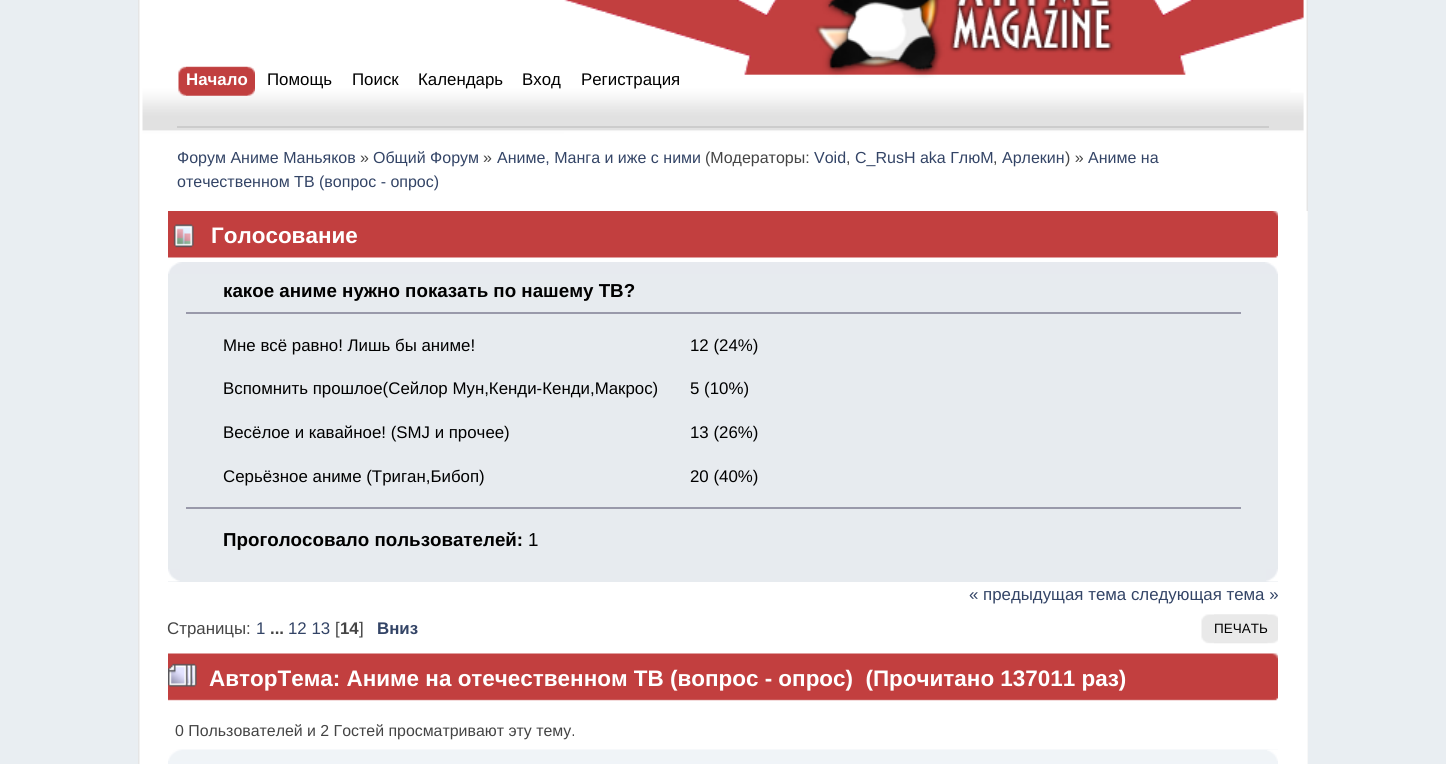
import math
import cairo


def paste(ctx, path, x, y, w, h):
	ctx.save()
	ctx.set_source_surface(cairo.ImageSurface.create_from_png(path), x, y)
	ctx.rectangle(x, y, w, h)
	ctx.fill()
	ctx.restore()

def draw(ctx):
	ctx.set_source_rgb(0.914, 0.933, 0.949)
	ctx.paint()
	paste(ctx, 'media/1.png', 138, 0, 426, 211)
	paste(ctx, 'media/2.png', 564, 0, 744, 211)
	paste(ctx, 'media/3.png', 186, 66, 69, 30)
	paste(ctx, 'media/4.png', 178, 66, 70, 30)
	ctx.select_font_face('Liberation Sans', cairo.FONT_SLANT_NORMAL, cairo.FONT_WEIGHT_BOLD)
	ctx.set_font_size(16.85)
	ctx.set_source_rgb(1, 1, 1)
	ctx.move_to(186, 85)
	ctx.show_text('Начало')
	ctx.select_font_face('Liberation Sans')
	ctx.set_source_rgb(0, 0, 0)
	for x, y, s in [
		(267, 85, 'Помощь'),
		(352, 85, 'Поиск'),
		(418, 85, 'Календарь'),
		(522, 85, 'Вход'),
		(581, 85, 'Регистрация'),
	]:
		ctx.move_to(x, y)
		ctx.show_text(s)
	ctx.set_source_rgb(0.8, 0.8, 0.8)
	ctx.rectangle(177, 126, 1092, 2)
	ctx.fill()
	ctx.set_font_size(16)
	ctx.set_source_rgb(0.2, 0.267, 0.4)
	ctx.move_to(177, 163)
	ctx.show_text('Форум Аниме Маньяков')
	ctx.set_source_rgb(0.267, 0.267, 0.267)
	ctx.move_to(360, 163)
	ctx.show_text('»')
	ctx.set_source_rgb(0.2, 0.267, 0.4)
	ctx.move_to(373, 163)
	ctx.show_text('Общий Форум')
	ctx.set_source_rgb(0.267, 0.267, 0.267)
	ctx.move_to(483, 163)
	ctx.show_text('»')
	ctx.set_source_rgb(0.2, 0.267, 0.4)
	ctx.move_to(497, 163)
	ctx.show_text('Аниме, Манга и иже с ними')
	ctx.set_source_rgb(0.267, 0.267, 0.267)
	ctx.move_to(705, 163)
	ctx.show_text('(Модераторы:')
	ctx.set_source_rgb(0.2, 0.267, 0.4)
	for x, y, s in [
		(814, 163, 'Void'),
		(855, 163, 'C_RusH aka ГлюМ'),
		(1002, 163, 'Арлекин'),
	]:
		ctx.move_to(x, y)
		ctx.show_text(s)
	ctx.set_source_rgb(0.267, 0.267, 0.267)
	ctx.move_to(1065, 163)
	ctx.show_text(') »')
	ctx.set_source_rgb(0.2, 0.267, 0.4)
	ctx.move_to(1088, 163)
	ctx.show_text('Аниме на')
	ctx.set_source_rgb(0.267, 0.267, 0.267)
	ctx.move_to(846, 163)
	ctx.show_text(',')
	ctx.move_to(993, 163)
	ctx.show_text(',')
	ctx.set_source_rgb(0.2, 0.267, 0.4)
	ctx.move_to(177, 187)
	ctx.show_text('отечественном ТВ (вопрос - опрос)')
	paste(ctx, 'media/5.png', 138, 211, 1169, 553)
	ctx.set_source_rgb(0.969, 0.969, 0.969)
	ctx.rectangle(1307, 211, 1, 553)
	ctx.fill()
	paste(ctx, 'media/6.png', 168, 211, 1110, 47)
	paste(ctx, 'media/7.png', 173, 224, 21, 24)
	ctx.select_font_face('Liberation Sans', cairo.FONT_SLANT_NORMAL, cairo.FONT_WEIGHT_BOLD)
	ctx.set_font_size(22.45)
	ctx.set_source_rgb(1, 1, 1)
	ctx.move_to(211, 243)
	ctx.show_text('Голосование')
	ctx.set_source_rgb(0.906, 0.918, 0.937)
	ctx.rectangle(168, 274, 1110, 308)
	ctx.fill()
	paste(ctx, 'media/8.png', 168, 262, 1097, 12)
	paste(ctx, 'media/9.png', 1265, 262, 13, 12)
	ctx.set_font_size(18.75)
	ctx.set_source_rgb(0, 0, 0)
	ctx.move_to(223, 297)
	ctx.show_text('какое аниме нужно показать по нашему ТВ?')
	ctx.set_source_rgb(0.6, 0.6, 0.667)
	ctx.rectangle(186, 312, 1055, 2)
	ctx.fill()
	ctx.rectangle(186, 507, 1055, 2)
	ctx.fill()
	ctx.select_font_face('Liberation Sans')
	ctx.set_font_size(16.85)
	ctx.set_source_rgb(0, 0, 0)
	for x, y, s in [
		(223, 351, 'Мне всё равно! Лишь бы аниме!'),
		(690, 351, '12 (24%)'),
		(223, 394, 'Вспомнить прошлое(Сейлор Мун,Кенди-Кенди,Макрос)'),
		(690, 394, '5 (10%)'),
		(223, 438, 'Весёлое и кавайное! (SMJ и прочее)'),
		(690, 438, '13 (26%)'),
		(223, 482, 'Серьёзное аниме (Триган,Бибоп)'),
		(690, 482, '20 (40%)'),
	]:
		ctx.move_to(x, y)
		ctx.show_text(s)
	ctx.select_font_face('Liberation Sans', cairo.FONT_SLANT_NORMAL, cairo.FONT_WEIGHT_BOLD)
	ctx.set_font_size(18.75)
	ctx.move_to(223, 546)
	ctx.show_text('Проголосовало пользователей:')
	ctx.select_font_face('Liberation Sans')
	ctx.move_to(528, 546)
	ctx.show_text('1')
	paste(ctx, 'media/10.png', 168, 569, 12, 13)
	paste(ctx, 'media/11.png', 1266, 569, 12, 13)
	ctx.set_font_size(16.85)
	ctx.set_source_rgb(0.2, 0.267, 0.4)
	ctx.move_to(969, 600)
	ctx.show_text('« предыдущая тема следующая тема »')
	ctx.set_source_rgb(0.267, 0.267, 0.267)
	ctx.move_to(167, 634)
	ctx.show_text('Страницы:')
	ctx.set_source_rgb(0.2, 0.267, 0.4)
	ctx.move_to(256, 634)
	ctx.show_text('1')
	ctx.select_font_face('Liberation Sans', cairo.FONT_SLANT_NORMAL, cairo.FONT_WEIGHT_BOLD)
	ctx.set_source_rgb(0.267, 0.267, 0.267)
	ctx.move_to(270, 634)
	ctx.show_text('...')
	ctx.select_font_face('Liberation Sans')
	ctx.set_source_rgb(0.2, 0.267, 0.4)
	ctx.move_to(288, 634)
	ctx.show_text('12 13')
	ctx.set_source_rgb(0.267, 0.267, 0.267)
	ctx.move_to(335, 634)
	ctx.show_text('[')
	ctx.select_font_face('Liberation Sans', cairo.FONT_SLANT_NORMAL, cairo.FONT_WEIGHT_BOLD)
	ctx.move_to(340, 634)
	ctx.show_text('14')
	ctx.select_font_face('Liberation Sans')
	ctx.move_to(359, 634)
	ctx.show_text(']')
	ctx.select_font_face('Liberation Sans', cairo.FONT_SLANT_NORMAL, cairo.FONT_WEIGHT_BOLD)
	ctx.set_source_rgb(0.2, 0.267, 0.4)
	ctx.move_to(377, 634)
	ctx.show_text('Вниз')
	paste(ctx, 'media/12.png', 1201, 614, 67, 30)
	paste(ctx, 'media/13.png', 1214, 614, 64, 30)
	ctx.select_font_face('Liberation Sans')
	ctx.set_font_size(13.5)
	ctx.set_source_rgb(0, 0, 0)
	ctx.move_to(1214, 633)
	ctx.show_text('ПЕЧАТЬ')
	paste(ctx, 'media/14.png', 168, 653, 1110, 48)
	paste(ctx, 'media/15.png', 168, 663, 29, 24)
	ctx.select_font_face('Liberation Sans', cairo.FONT_SLANT_NORMAL, cairo.FONT_WEIGHT_BOLD)
	ctx.set_font_size(22.45)
	ctx.set_source_rgb(1, 1, 1)
	ctx.move_to(209, 686)
	ctx.show_text('АвторТема: Аниме на отечественном ТВ (вопрос - опрос)  (Прочитано 137011 раз)')
	ctx.select_font_face('Liberation Sans')
	ctx.set_font_size(15.9)
	ctx.set_source_rgb(0.267, 0.267, 0.267)
	ctx.move_to(175, 736)
	ctx.show_text('0 Пользователей и 2 Гостей просматривают эту тему.')
	ctx.set_source_rgb(0.941, 0.957, 0.969)
	ctx.rectangle(168, 761, 1110, 3)
	ctx.fill()
	paste(ctx, 'media/16.png', 168, 749, 1110, 12)
	paste(ctx, 'media/17.png', 1267, 749, 11, 12)


surface = cairo.ImageSurface(cairo.FORMAT_RGB24, 1446, 764)
ctx = cairo.Context(surface)
options = cairo.FontOptions()
options.set_hint_metrics(cairo.HINT_METRICS_OFF)
options.set_hint_style(cairo.HINT_STYLE_NONE)
ctx.set_font_options(options)
ctx.set_miter_limit(4)
draw(ctx)
surface.write_to_png('image.png')
